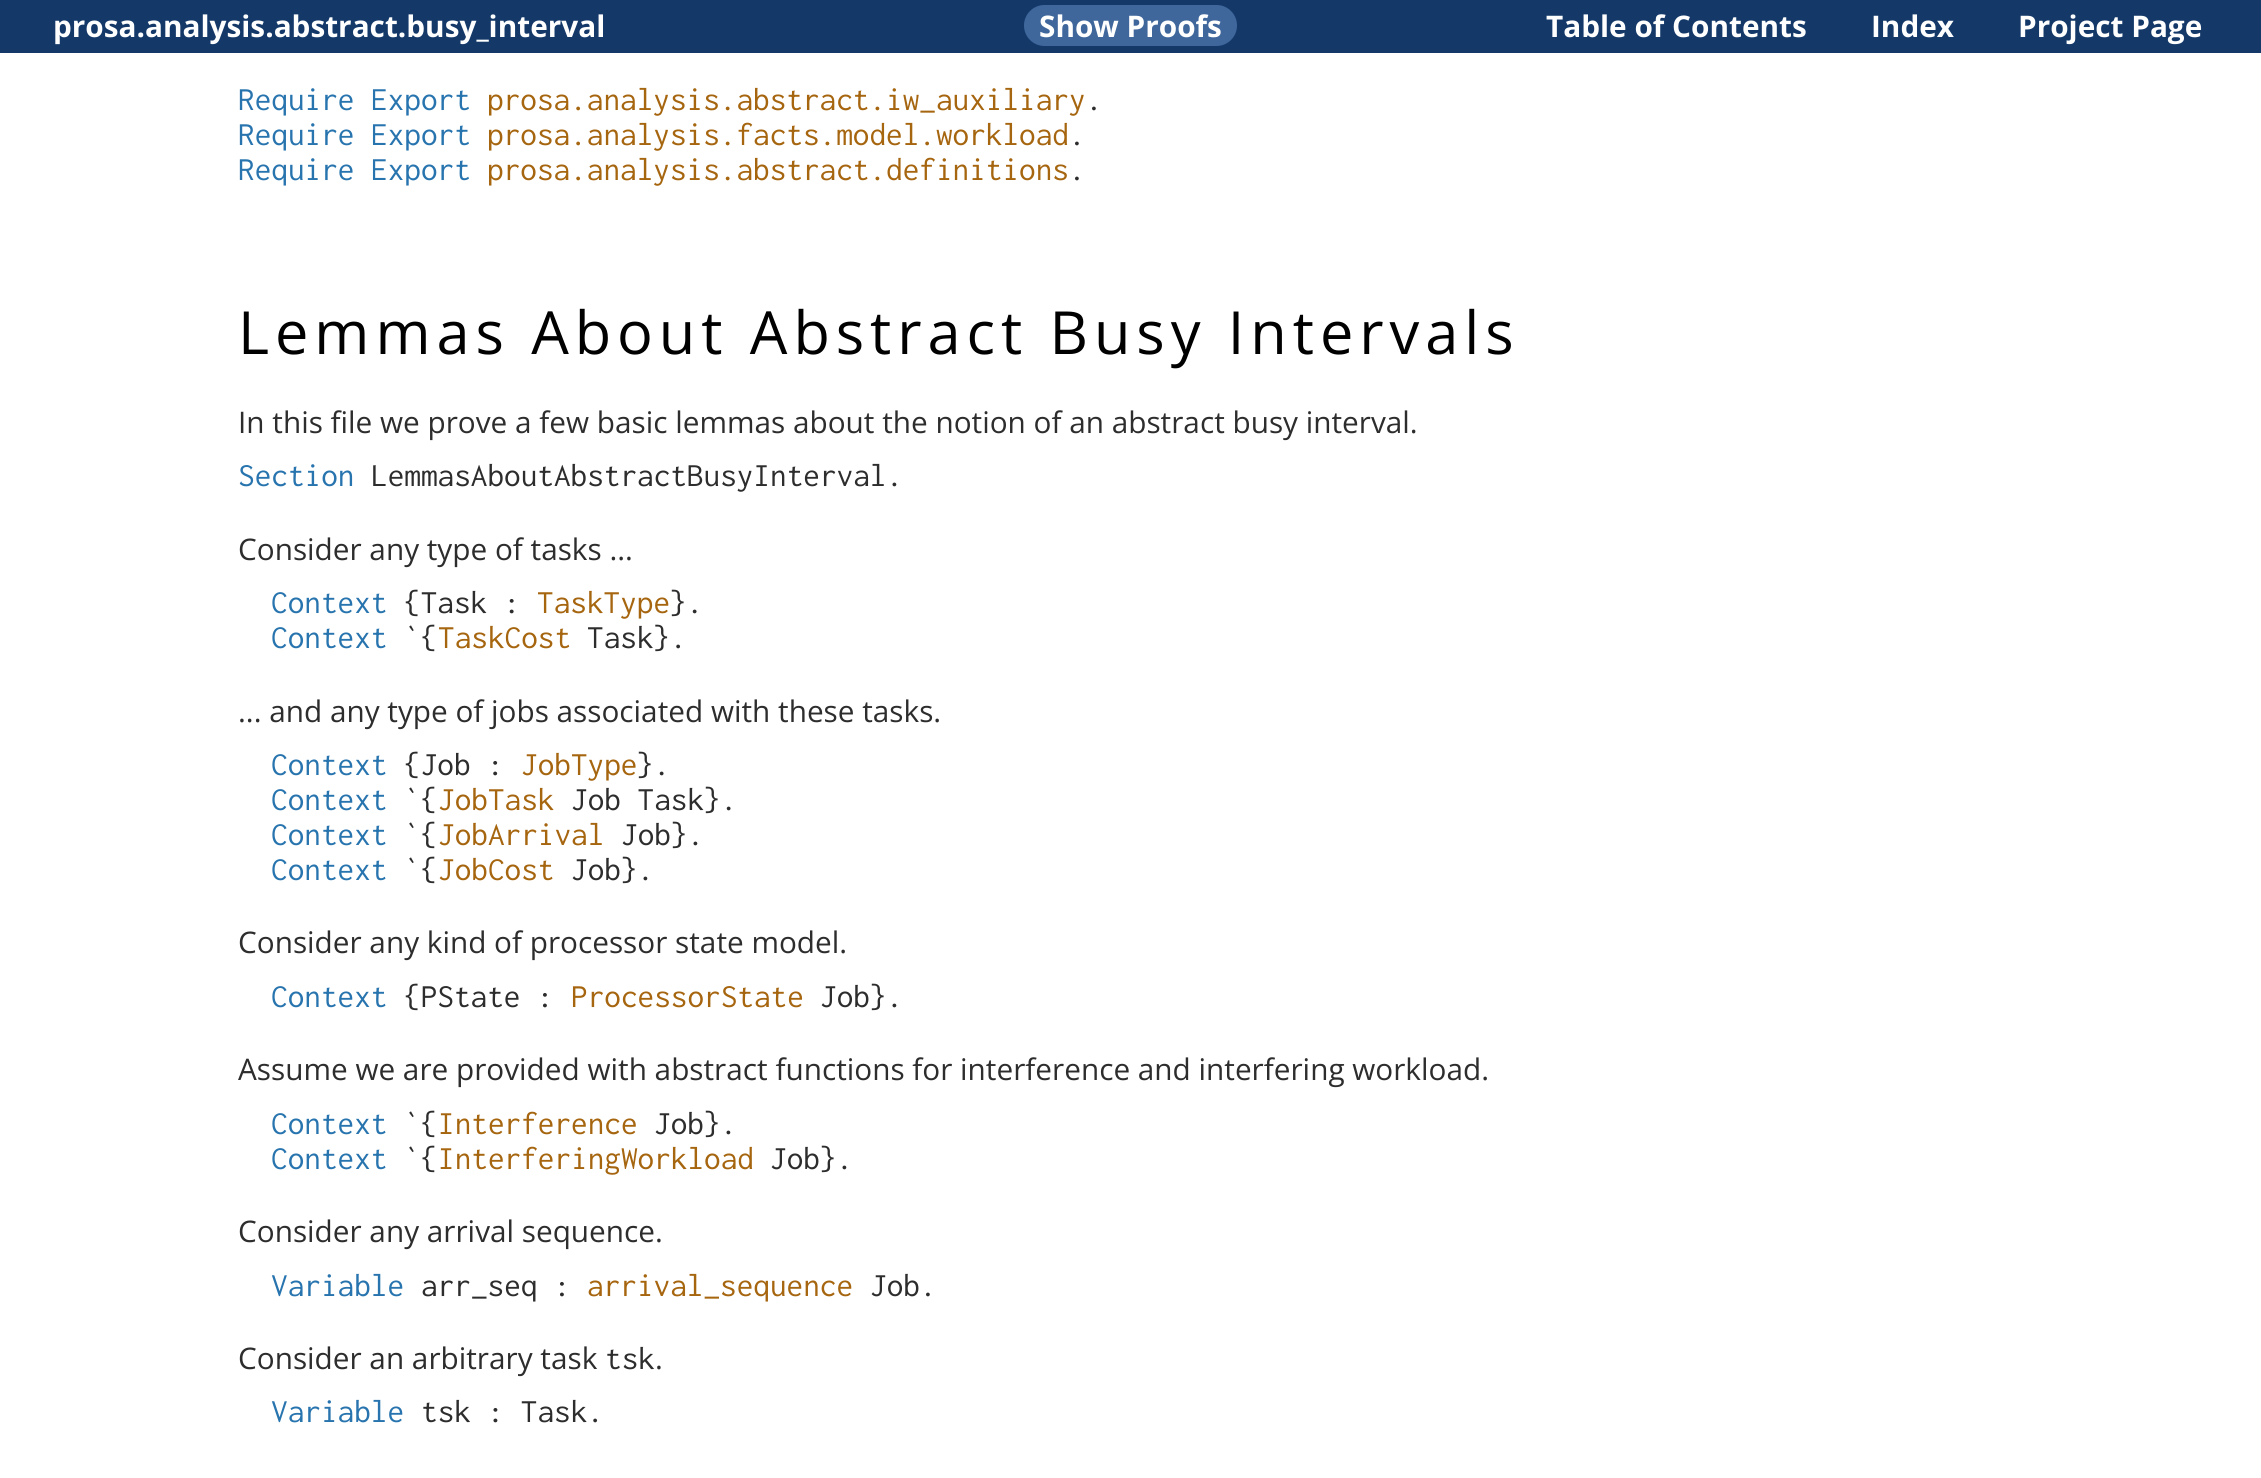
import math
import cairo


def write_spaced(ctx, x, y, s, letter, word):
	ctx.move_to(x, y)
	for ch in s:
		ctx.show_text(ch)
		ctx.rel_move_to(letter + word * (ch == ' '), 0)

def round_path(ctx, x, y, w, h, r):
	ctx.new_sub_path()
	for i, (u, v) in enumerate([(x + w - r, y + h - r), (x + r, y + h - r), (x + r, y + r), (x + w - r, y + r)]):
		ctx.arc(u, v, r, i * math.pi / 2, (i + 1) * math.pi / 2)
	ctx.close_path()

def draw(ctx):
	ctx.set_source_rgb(1, 1, 1)
	ctx.paint()
	ctx.set_source_rgb(0.082, 0.224, 0.412)
	ctx.rectangle(0, 0, 2261, 53)
	ctx.fill()
	ctx.select_font_face('Open Sans', cairo.FONT_SLANT_NORMAL, cairo.FONT_WEIGHT_BOLD)
	ctx.set_font_size(29.75)
	ctx.set_source_rgb(1, 1, 1)
	ctx.move_to(53, 37)
	ctx.show_text('prosa.analysis.abstract.busy_interval')
	ctx.set_source_rgb(0.247, 0.404, 0.612)
	round_path(ctx, 1024, 5, 213, 41, 20.5)
	ctx.fill()
	ctx.set_source_rgb(1, 1, 1)
	for x, y, s in [
		(1039, 37, 'Show Proofs'),
		(1546, 37, 'Table of Contents'),
		(1871, 37, 'Index'),
		(2018, 37, 'Project Page'),
	]:
		ctx.move_to(x, y)
		ctx.show_text(s)
	ctx.select_font_face('Inconsolata')
	ctx.set_font_size(33.25)
	ctx.set_source_rgb(0.157, 0.455, 0.682)
	ctx.move_to(238, 110)
	ctx.show_text('Require Export')
	ctx.set_source_rgb(0.651, 0.396, 0.059)
	ctx.move_to(487, 110)
	ctx.show_text('prosa.analysis.abstract.iw_auxiliary')
	ctx.set_source_rgb(0.176, 0.176, 0.176)
	ctx.move_to(1086, 110)
	ctx.show_text('.')
	ctx.set_source_rgb(0.157, 0.455, 0.682)
	ctx.move_to(238, 145)
	ctx.show_text('Require Export')
	ctx.set_source_rgb(0.651, 0.396, 0.059)
	ctx.move_to(487, 145)
	ctx.show_text('prosa.analysis.facts.model.workload')
	ctx.set_source_rgb(0.176, 0.176, 0.176)
	ctx.move_to(1069, 145)
	ctx.show_text('.')
	ctx.set_source_rgb(0.157, 0.455, 0.682)
	ctx.move_to(238, 180)
	ctx.show_text('Require Export')
	ctx.set_source_rgb(0.651, 0.396, 0.059)
	ctx.move_to(487, 180)
	ctx.show_text('prosa.analysis.abstract.definitions')
	ctx.set_source_rgb(0.176, 0.176, 0.176)
	ctx.move_to(1069, 180)
	ctx.show_text('.')
	ctx.select_font_face('Open Sans')
	ctx.set_font_size(59.5)
	ctx.set_source_rgb(0, 0, 0)
	write_spaced(ctx, 238, 354, 'Lemmas About Abstract Busy Intervals', 5.95, 0)
	ctx.set_font_size(29.75)
	ctx.set_source_rgb(0.176, 0.176, 0.176)
	ctx.move_to(238, 433)
	ctx.show_text('In this file we prove a few basic lemmas about the notion of an abstract busy interval.')
	ctx.select_font_face('Inconsolata')
	ctx.set_font_size(33.25)
	ctx.set_source_rgb(0.157, 0.455, 0.682)
	ctx.move_to(238, 486)
	ctx.show_text('Section')
	ctx.set_source_rgb(0.176, 0.176, 0.176)
	ctx.move_to(371, 486)
	ctx.show_text('LemmasAboutAbstractBusyInterval.')
	ctx.select_font_face('Open Sans')
	ctx.set_font_size(29.75)
	ctx.move_to(238, 560)
	ctx.show_text('Consider any type of tasks ...')
	ctx.select_font_face('Inconsolata')
	ctx.set_font_size(33.25)
	ctx.set_source_rgb(0.157, 0.455, 0.682)
	ctx.move_to(271, 613)
	ctx.show_text('Context')
	ctx.set_source_rgb(0.176, 0.176, 0.176)
	ctx.move_to(404, 613)
	ctx.show_text('{Task :')
	ctx.set_source_rgb(0.651, 0.396, 0.059)
	ctx.move_to(537, 613)
	ctx.show_text('TaskType')
	ctx.set_source_rgb(0.176, 0.176, 0.176)
	ctx.move_to(670, 613)
	ctx.show_text('}.')
	ctx.set_source_rgb(0.157, 0.455, 0.682)
	ctx.move_to(271, 648)
	ctx.show_text('Context')
	ctx.set_source_rgb(0.176, 0.176, 0.176)
	ctx.move_to(404, 648)
	ctx.show_text('`{')
	ctx.set_source_rgb(0.651, 0.396, 0.059)
	ctx.move_to(438, 648)
	ctx.show_text('TaskCost')
	ctx.set_source_rgb(0.176, 0.176, 0.176)
	ctx.move_to(587, 648)
	ctx.show_text('Task}.')
	ctx.select_font_face('Open Sans')
	ctx.set_font_size(29.75)
	ctx.move_to(238, 722)
	ctx.show_text('... and any type of jobs associated with these tasks.')
	ctx.select_font_face('Inconsolata')
	ctx.set_font_size(33.25)
	ctx.set_source_rgb(0.157, 0.455, 0.682)
	ctx.move_to(271, 775)
	ctx.show_text('Context')
	ctx.set_source_rgb(0.176, 0.176, 0.176)
	ctx.move_to(404, 775)
	ctx.show_text('{Job :')
	ctx.set_source_rgb(0.651, 0.396, 0.059)
	ctx.move_to(521, 775)
	ctx.show_text('JobType')
	ctx.set_source_rgb(0.176, 0.176, 0.176)
	ctx.move_to(637, 775)
	ctx.show_text('}.')
	ctx.set_source_rgb(0.157, 0.455, 0.682)
	ctx.move_to(271, 810)
	ctx.show_text('Context')
	ctx.set_source_rgb(0.176, 0.176, 0.176)
	ctx.move_to(404, 810)
	ctx.show_text('`{')
	ctx.set_source_rgb(0.651, 0.396, 0.059)
	ctx.move_to(438, 810)
	ctx.show_text('JobTask')
	ctx.set_source_rgb(0.176, 0.176, 0.176)
	ctx.move_to(571, 810)
	ctx.show_text('Job Task}.')
	ctx.set_source_rgb(0.157, 0.455, 0.682)
	ctx.move_to(271, 845)
	ctx.show_text('Context')
	ctx.set_source_rgb(0.176, 0.176, 0.176)
	ctx.move_to(404, 845)
	ctx.show_text('`{')
	ctx.set_source_rgb(0.651, 0.396, 0.059)
	ctx.move_to(438, 845)
	ctx.show_text('JobArrival')
	ctx.set_source_rgb(0.176, 0.176, 0.176)
	ctx.move_to(621, 845)
	ctx.show_text('Job}.')
	ctx.set_source_rgb(0.157, 0.455, 0.682)
	ctx.move_to(271, 880)
	ctx.show_text('Context')
	ctx.set_source_rgb(0.176, 0.176, 0.176)
	ctx.move_to(404, 880)
	ctx.show_text('`{')
	ctx.set_source_rgb(0.651, 0.396, 0.059)
	ctx.move_to(438, 880)
	ctx.show_text('JobCost')
	ctx.set_source_rgb(0.176, 0.176, 0.176)
	ctx.move_to(571, 880)
	ctx.show_text('Job}.')
	ctx.select_font_face('Open Sans')
	ctx.set_font_size(29.75)
	ctx.move_to(238, 953)
	ctx.show_text('Consider any kind of processor state model.')
	ctx.select_font_face('Inconsolata')
	ctx.set_font_size(33.25)
	ctx.set_source_rgb(0.157, 0.455, 0.682)
	ctx.move_to(271, 1007)
	ctx.show_text('Context')
	ctx.set_source_rgb(0.176, 0.176, 0.176)
	ctx.move_to(404, 1007)
	ctx.show_text('{PState :')
	ctx.set_source_rgb(0.651, 0.396, 0.059)
	ctx.move_to(571, 1007)
	ctx.show_text('ProcessorState')
	ctx.set_source_rgb(0.176, 0.176, 0.176)
	ctx.move_to(820, 1007)
	ctx.show_text('Job}.')
	ctx.select_font_face('Open Sans')
	ctx.set_font_size(29.75)
	ctx.move_to(238, 1080)
	ctx.show_text('Assume we are provided with abstract functions for interference and interfering workload.')
	ctx.select_font_face('Inconsolata')
	ctx.set_font_size(33.25)
	ctx.set_source_rgb(0.157, 0.455, 0.682)
	ctx.move_to(271, 1134)
	ctx.show_text('Context')
	ctx.set_source_rgb(0.176, 0.176, 0.176)
	ctx.move_to(404, 1134)
	ctx.show_text('`{')
	ctx.set_source_rgb(0.651, 0.396, 0.059)
	ctx.move_to(438, 1134)
	ctx.show_text('Interference')
	ctx.set_source_rgb(0.176, 0.176, 0.176)
	ctx.move_to(654, 1134)
	ctx.show_text('Job}.')
	ctx.set_source_rgb(0.157, 0.455, 0.682)
	ctx.move_to(271, 1169)
	ctx.show_text('Context')
	ctx.set_source_rgb(0.176, 0.176, 0.176)
	ctx.move_to(404, 1169)
	ctx.show_text('`{')
	ctx.set_source_rgb(0.651, 0.396, 0.059)
	ctx.move_to(438, 1169)
	ctx.show_text('InterferingWorkload')
	ctx.set_source_rgb(0.176, 0.176, 0.176)
	ctx.move_to(770, 1169)
	ctx.show_text('Job}.')
	ctx.select_font_face('Open Sans')
	ctx.set_font_size(29.75)
	ctx.move_to(238, 1242)
	ctx.show_text('Consider any arrival sequence.')
	ctx.select_font_face('Inconsolata')
	ctx.set_font_size(33.25)
	ctx.set_source_rgb(0.157, 0.455, 0.682)
	ctx.move_to(271, 1296)
	ctx.show_text('Variable')
	ctx.set_source_rgb(0.176, 0.176, 0.176)
	ctx.move_to(421, 1296)
	ctx.show_text('arr_seq :')
	ctx.set_source_rgb(0.651, 0.396, 0.059)
	ctx.move_to(587, 1296)
	ctx.show_text('arrival_sequence')
	ctx.set_source_rgb(0.176, 0.176, 0.176)
	ctx.move_to(870, 1296)
	ctx.show_text('Job.')
	ctx.select_font_face('Open Sans')
	ctx.set_font_size(29.75)
	ctx.move_to(238, 1369)
	ctx.show_text('Consider an arbitrary task')
	ctx.select_font_face('Inconsolata')
	ctx.set_font_size(33.25)
	ctx.move_to(605, 1369)
	ctx.show_text('tsk')
	ctx.select_font_face('Open Sans')
	ctx.set_font_size(29.75)
	ctx.move_to(655, 1369)
	ctx.show_text('.')
	ctx.select_font_face('Inconsolata')
	ctx.set_font_size(33.25)
	ctx.set_source_rgb(0.157, 0.455, 0.682)
	ctx.move_to(271, 1422)
	ctx.show_text('Variable')
	ctx.set_source_rgb(0.176, 0.176, 0.176)
	ctx.move_to(421, 1422)
	ctx.show_text('tsk : Task.')


surface = cairo.ImageSurface(cairo.FORMAT_RGB24, 2261, 1478)
ctx = cairo.Context(surface)
options = cairo.FontOptions()
options.set_hint_metrics(cairo.HINT_METRICS_OFF)
options.set_hint_style(cairo.HINT_STYLE_NONE)
ctx.set_font_options(options)
ctx.set_miter_limit(4)
draw(ctx)
surface.write_to_png('image.png')
